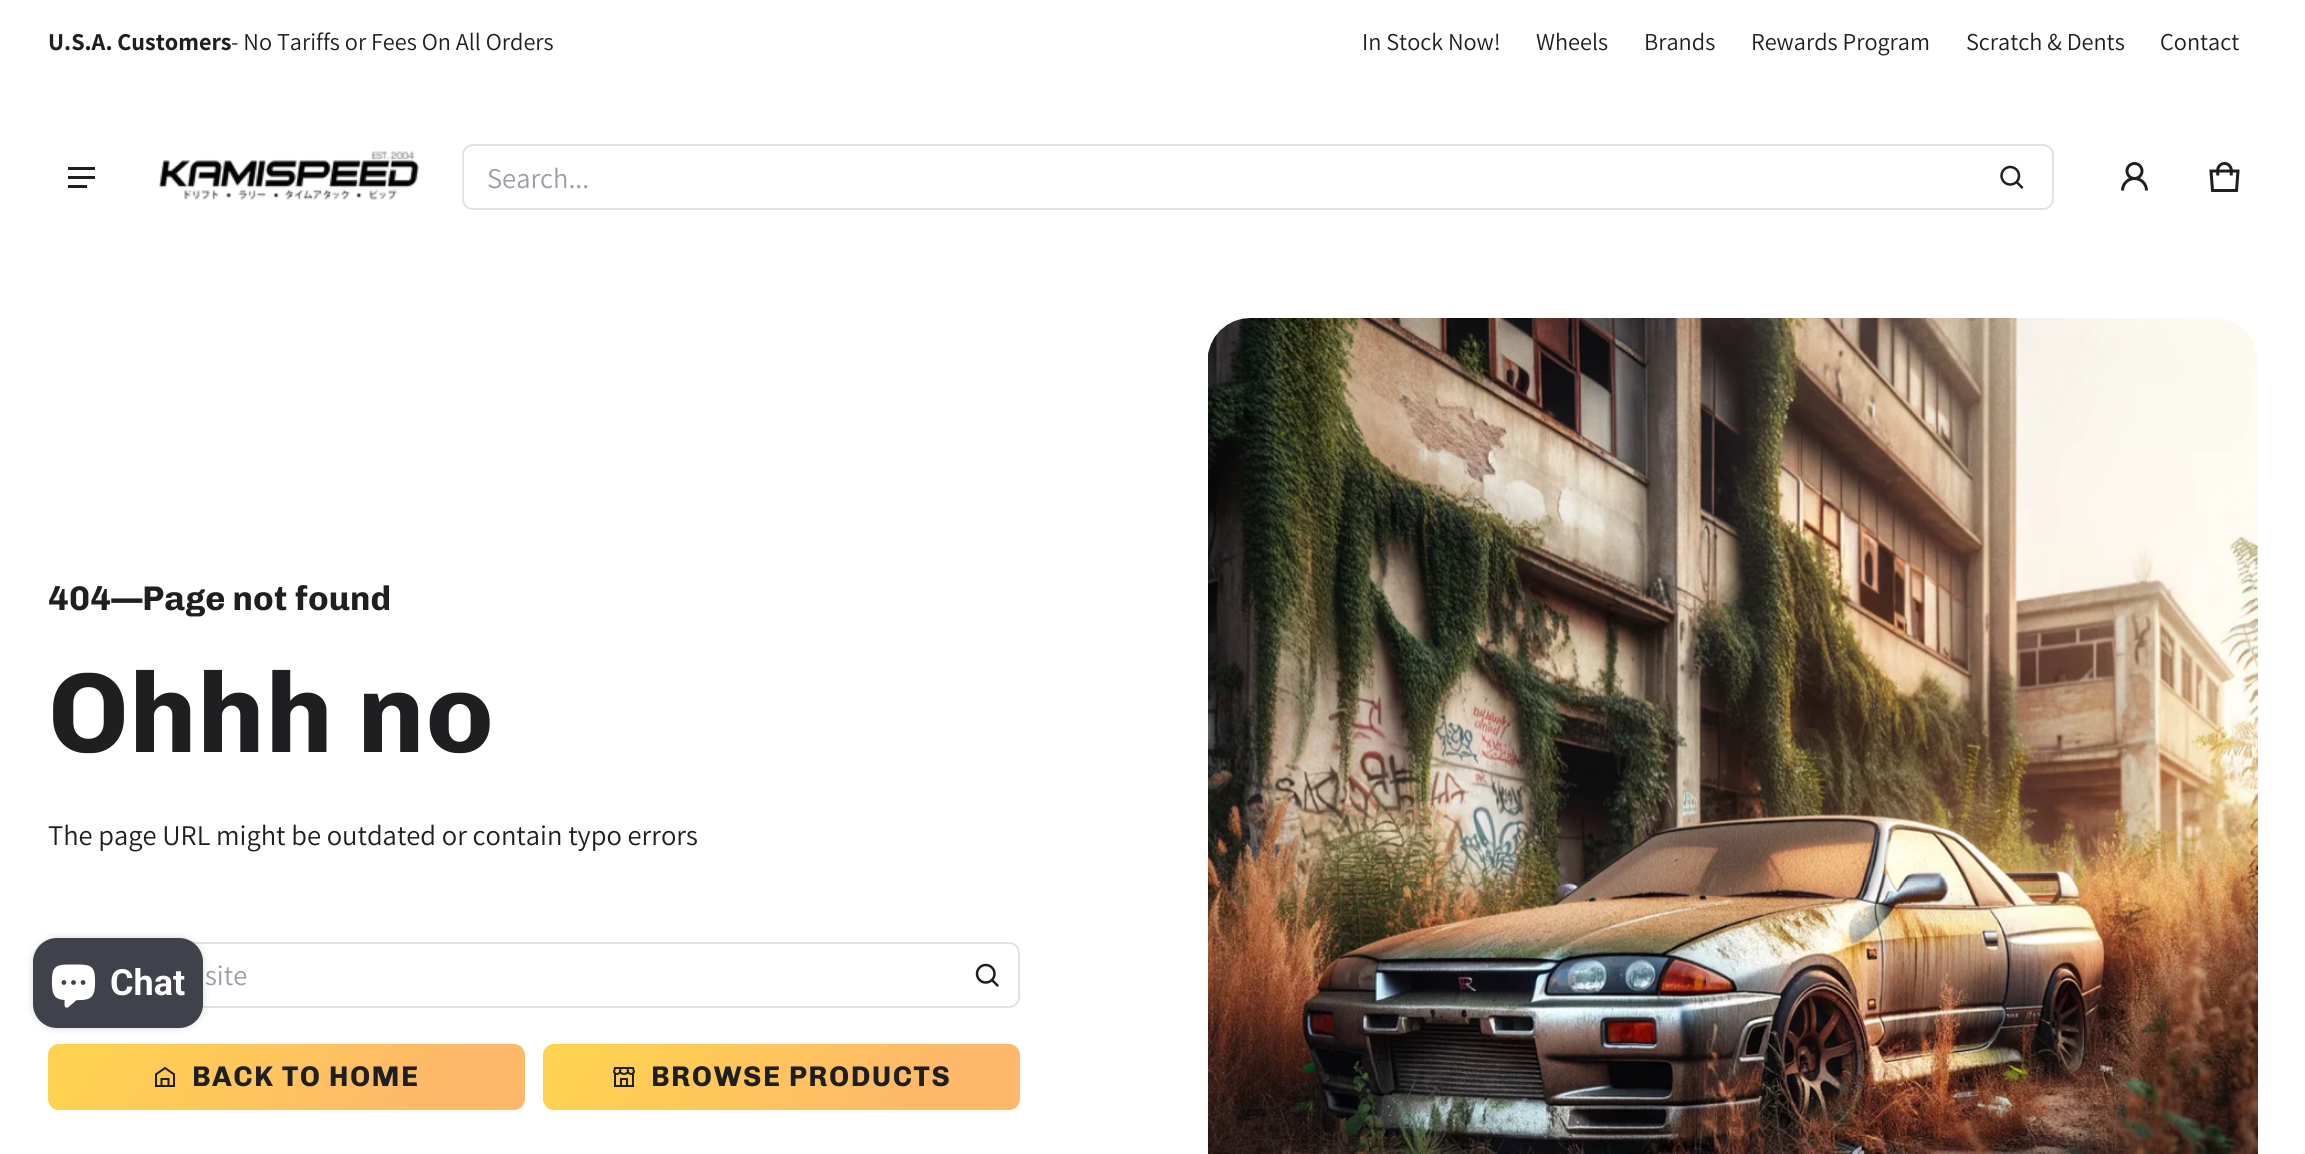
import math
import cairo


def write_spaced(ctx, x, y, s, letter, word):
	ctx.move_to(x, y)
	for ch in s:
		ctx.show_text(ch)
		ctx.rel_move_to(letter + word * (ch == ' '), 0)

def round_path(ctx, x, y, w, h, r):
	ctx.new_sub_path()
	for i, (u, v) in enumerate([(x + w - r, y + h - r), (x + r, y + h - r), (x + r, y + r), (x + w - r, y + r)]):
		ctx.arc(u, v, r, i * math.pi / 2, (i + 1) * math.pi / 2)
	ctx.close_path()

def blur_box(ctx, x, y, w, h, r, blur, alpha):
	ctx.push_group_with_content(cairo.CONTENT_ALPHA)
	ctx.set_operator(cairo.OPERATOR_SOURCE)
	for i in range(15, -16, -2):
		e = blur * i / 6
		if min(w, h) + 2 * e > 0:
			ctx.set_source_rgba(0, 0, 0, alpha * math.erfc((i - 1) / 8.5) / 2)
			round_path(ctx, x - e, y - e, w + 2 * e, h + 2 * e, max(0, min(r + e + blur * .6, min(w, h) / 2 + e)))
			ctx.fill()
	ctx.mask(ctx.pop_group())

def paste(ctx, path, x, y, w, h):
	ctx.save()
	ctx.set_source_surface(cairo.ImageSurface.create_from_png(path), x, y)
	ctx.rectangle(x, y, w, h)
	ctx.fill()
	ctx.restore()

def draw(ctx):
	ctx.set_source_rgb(1, 1, 1)
	ctx.paint()
	ctx.select_font_face('Assistant', cairo.FONT_SLANT_NORMAL, cairo.FONT_WEIGHT_BOLD)
	ctx.set_font_size(24.25)
	ctx.set_source_rgb(0.122, 0.122, 0.129)
	ctx.move_to(48, 50)
	ctx.show_text('U.S.A. Customers')
	ctx.select_font_face('Assistant')
	for x, y, s in [
		(231, 50, '- No Tariffs or Fees On All Orders'),
		(1362, 50, 'In Stock Now!'),
		(1536, 50, 'Wheels'),
		(1644, 50, 'Brands'),
		(1751, 50, 'Rewards Program'),
		(1966, 50, 'Scratch & Dents'),
		(2160, 50, 'Contact'),
	]:
		ctx.move_to(x, y)
		ctx.show_text(s)
	ctx.rectangle(68, 167, 27, 3)
	ctx.rectangle(68, 176, 27, 3)
	ctx.rectangle(68, 185, 19, 3)
	ctx.fill()
	paste(ctx, 'media/1.png', 158, 151, 261, 49)
	round_path(ctx, 463, 145, 1590, 64, 10)
	ctx.set_source_rgb(0.886, 0.886, 0.89)
	ctx.stroke()
	ctx.set_font_size(28.5)
	ctx.set_source_rgb(0.608, 0.616, 0.655)
	ctx.move_to(487, 188)
	ctx.show_text('Search...')
	paste(ctx, 'media/2.png', 2000, 165, 24, 24)
	paste(ctx, 'media/3.png', 2121, 162, 27, 29)
	paste(ctx, 'media/4.png', 2209, 162, 31, 30)
	ctx.select_font_face('Chivo', cairo.FONT_SLANT_NORMAL, cairo.FONT_WEIGHT_BOLD)
	ctx.set_font_size(34.25)
	ctx.set_source_rgb(0.122, 0.122, 0.129)
	ctx.move_to(48, 610)
	ctx.show_text('404—Page not found')
	ctx.set_font_size(114)
	ctx.move_to(48, 752)
	ctx.show_text('Ohhh no')
	ctx.select_font_face('Assistant')
	ctx.set_font_size(28.5)
	ctx.move_to(48, 845)
	ctx.show_text('The page URL might be outdated or contain typo errors')
	round_path(ctx, 49, 943, 970, 64, 10)
	ctx.set_source_rgb(0.886, 0.886, 0.89)
	ctx.stroke()
	ctx.set_source_rgb(0.608, 0.616, 0.655)
	ctx.move_to(205, 985)
	ctx.show_text('site')
	paste(ctx, 'media/5.png', 975, 963, 24, 24)
	gradient = cairo.LinearGradient(119, 950, 454, 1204)
	gradient.add_color_stop_rgba(0.11, 0.996, 0.82, 0.318, 1)
	gradient.add_color_stop_rgba(0.81, 0.996, 0.722, 0.412, 1)
	ctx.set_source(gradient)
	round_path(ctx, 48, 1044, 477, 66, 11)
	ctx.fill()
	paste(ctx, 'media/6.png', 155, 1066, 20, 21)
	ctx.select_font_face('Chivo', cairo.FONT_SLANT_NORMAL, cairo.FONT_WEIGHT_BOLD)
	ctx.set_source_rgb(0.122, 0.122, 0.129)
	write_spaced(ctx, 192, 1086, 'BACK TO HOME', 1.4, 0)
	gradient = cairo.LinearGradient(614, 950, 949, 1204)
	gradient.add_color_stop_rgba(0.11, 0.996, 0.82, 0.318, 1)
	gradient.add_color_stop_rgba(0.81, 0.996, 0.722, 0.412, 1)
	ctx.set_source(gradient)
	round_path(ctx, 543, 1044, 477, 66, 11)
	ctx.fill()
	paste(ctx, 'media/7.png', 613, 1067, 22, 20)
	ctx.set_source_rgb(0.122, 0.122, 0.129)
	write_spaced(ctx, 651, 1086, 'BROWSE PRODUCTS', 1.4, 0)
	paste(ctx, 'media/8.png', 1208, 318, 1050, 836)
	ctx.set_source_rgb(0, 0, 0)
	blur_box(ctx, 33, 938, 170, 90, 24, 4, 0.15)
	ctx.set_source_rgb(0.247, 0.255, 0.294)
	round_path(ctx, 33, 938, 170, 90, 24)
	ctx.fill()
	paste(ctx, 'media/9.png', 51, 964, 45, 44)
	ctx.select_font_face('Roboto', cairo.FONT_SLANT_NORMAL, cairo.FONT_WEIGHT_BOLD)
	ctx.set_font_size(36)
	ctx.set_source_rgb(1, 1, 1)
	ctx.move_to(110, 995)
	ctx.show_text('Chat')
	ctx.set_source_rgb(0.961, 0.961, 0.961)
	ctx.rectangle(2303, 1152, 2, 2)
	ctx.fill()


surface = cairo.ImageSurface(cairo.FORMAT_RGB24, 2305, 1154)
ctx = cairo.Context(surface)
options = cairo.FontOptions()
options.set_hint_metrics(cairo.HINT_METRICS_OFF)
options.set_hint_style(cairo.HINT_STYLE_NONE)
ctx.set_font_options(options)
ctx.set_miter_limit(4)
draw(ctx)
surface.write_to_png('image.png')
